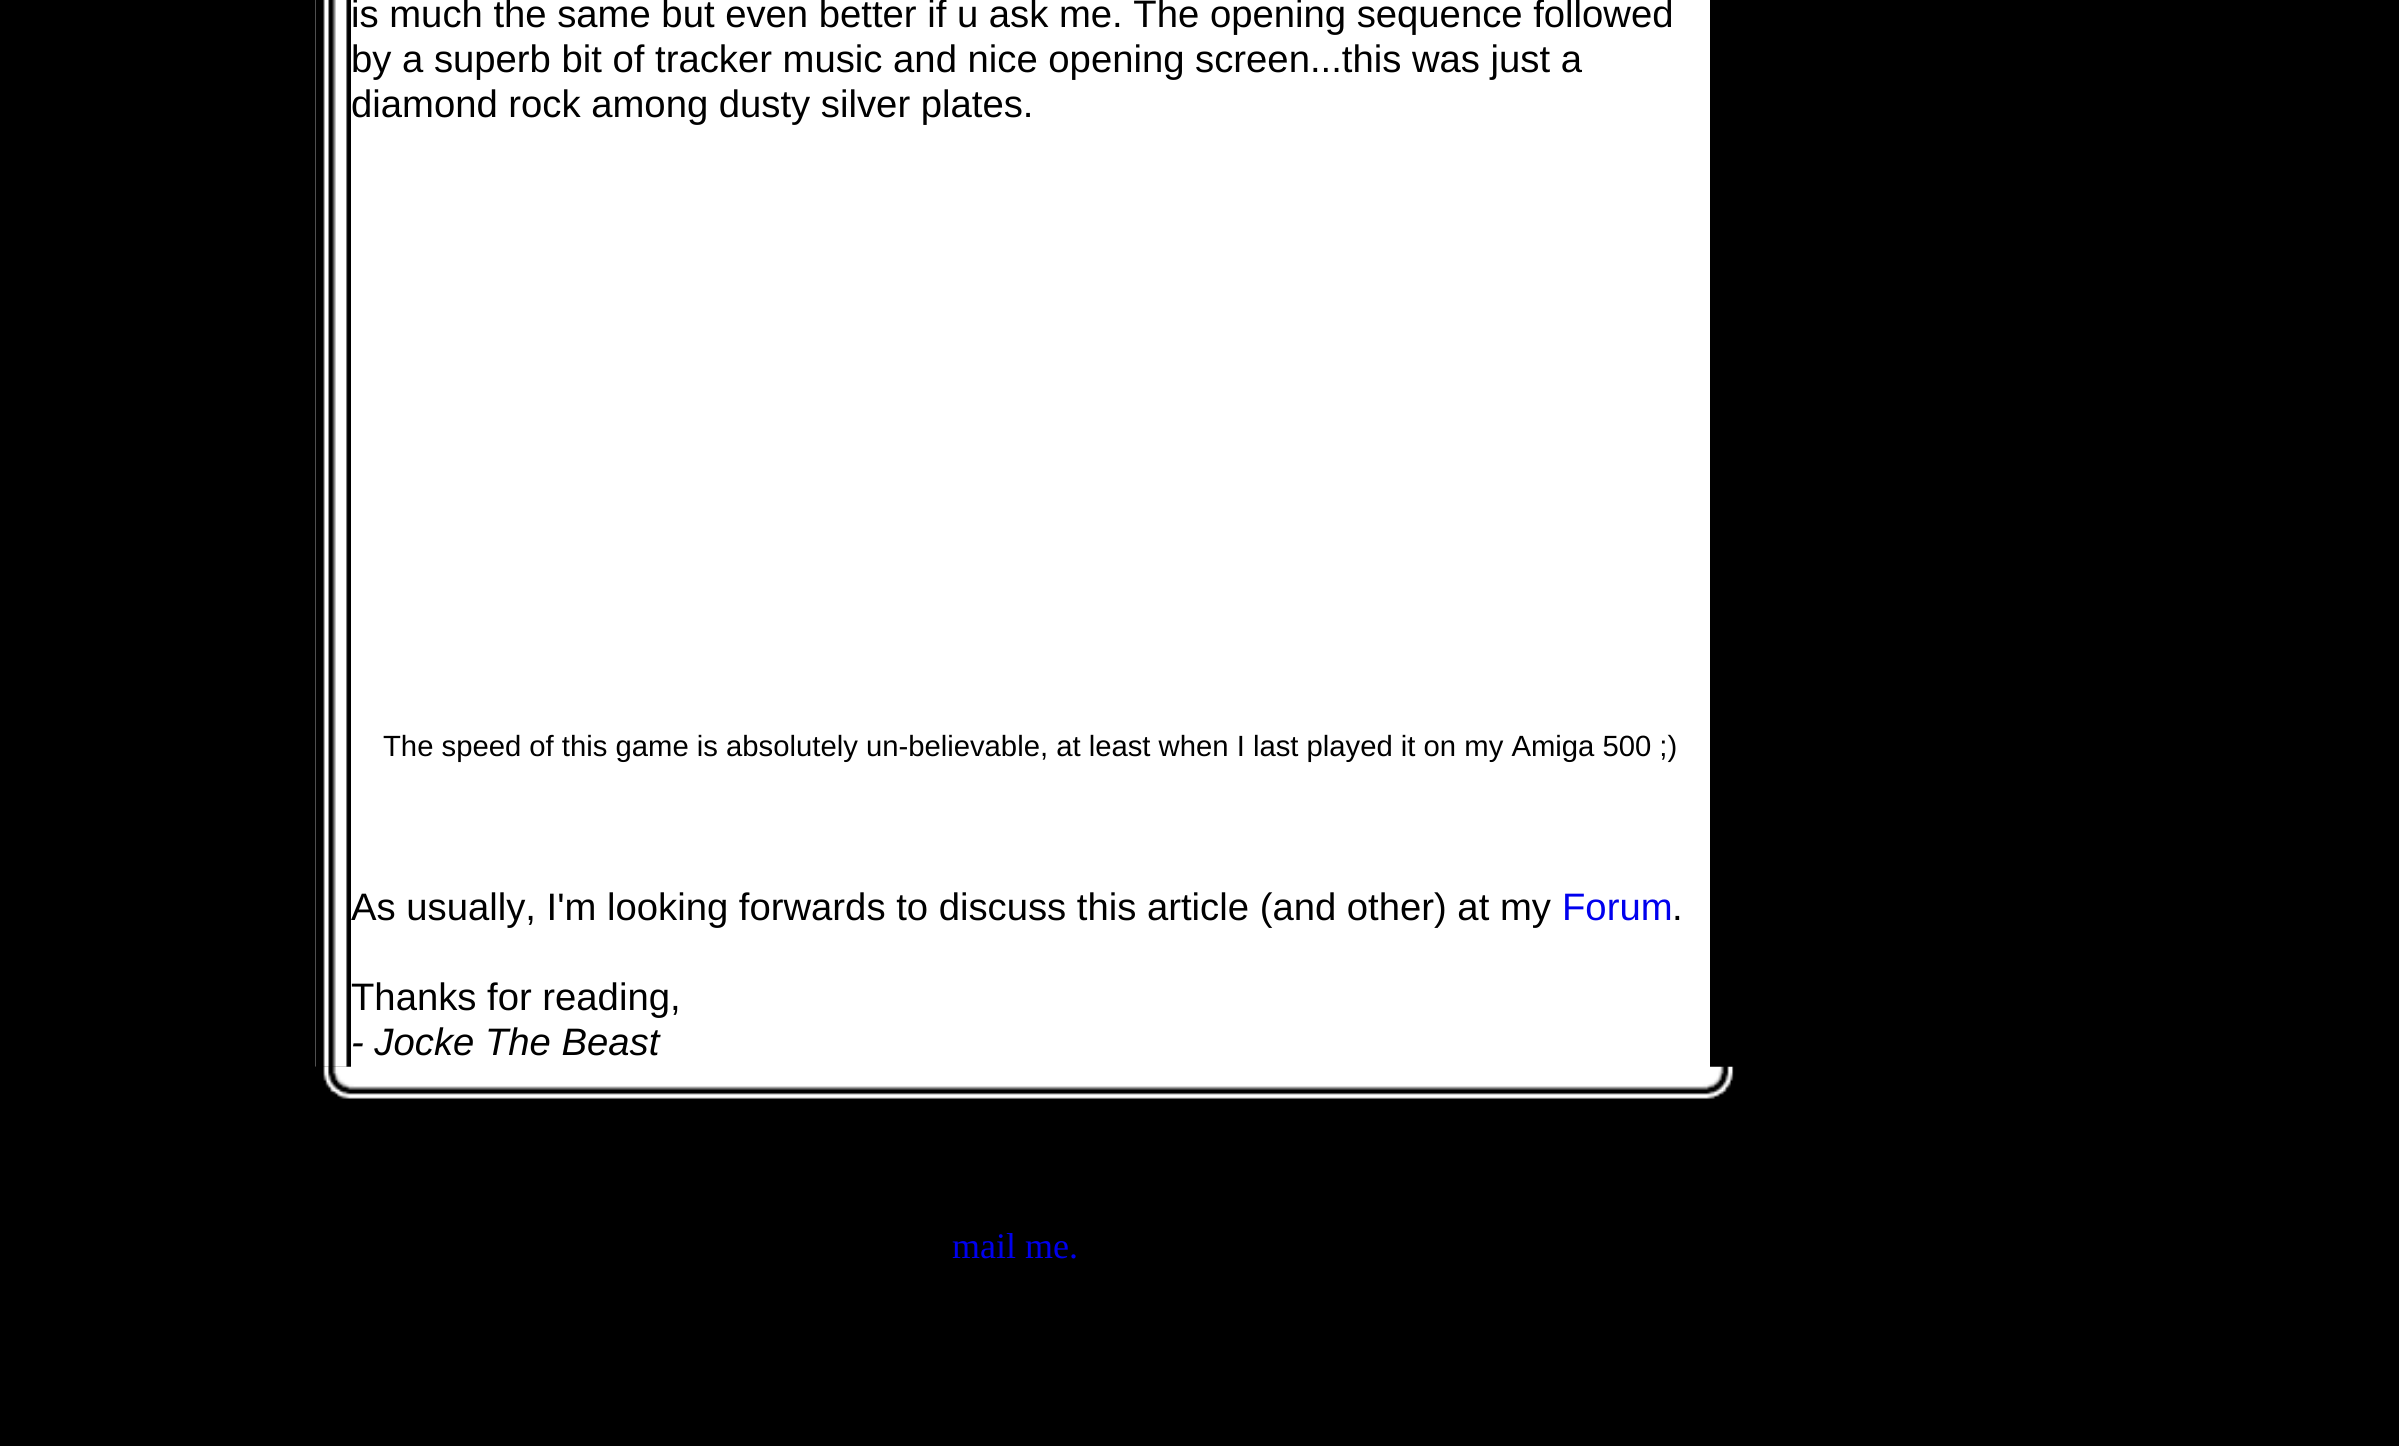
import math
import cairo


def paste(ctx, path, x, y, w, h):
	ctx.save()
	ctx.set_source_surface(cairo.ImageSurface.create_from_png(path), x, y)
	ctx.rectangle(x, y, w, h)
	ctx.fill()
	ctx.restore()

def draw(ctx):
	ctx.set_source_rgb(0, 0, 0)
	ctx.paint()
	paste(ctx, 'media/1.png', 315, 0, 33, 1067)
	ctx.set_source_rgb(1, 1, 1)
	ctx.rectangle(351, 0, 1359, 1067)
	ctx.fill()
	ctx.select_font_face('Liberation Sans')
	ctx.set_font_size(38.25)
	ctx.set_source_rgb(0, 0, 0)
	for x, y, s in [
		(351, 27, 'is much the same but even better if u ask me. The opening sequence followed'),
		(351, 72, 'by a superb bit of tracker music and nice opening screen...this was just a'),
		(351, 117, 'diamond rock among dusty silver plates.'),
	]:
		ctx.move_to(x, y)
		ctx.show_text(s)
	ctx.set_font_size(29.25)
	ctx.move_to(383, 756)
	ctx.show_text('The speed of this game is absolutely un-believable, at least when I last played it on my Amiga 500 ;)')
	ctx.set_font_size(38.25)
	ctx.move_to(351, 920)
	ctx.show_text('As usually, I\'m looking forwards to discuss this article (and other) at my')
	ctx.set_source_rgb(0, 0, 0.933)
	ctx.move_to(1562, 920)
	ctx.show_text('Forum')
	ctx.set_source_rgb(0, 0, 0)
	ctx.move_to(1672, 920)
	ctx.show_text('.')
	ctx.move_to(351, 1010)
	ctx.show_text('Thanks for reading,')
	ctx.select_font_face('Liberation Sans', cairo.FONT_SLANT_ITALIC)
	ctx.move_to(351, 1055)
	ctx.show_text('- Jocke The Beast')
	paste(ctx, 'media/2.png', 315, 1066, 1419, 33)
	ctx.select_font_face('Liberation Serif')
	ctx.set_font_size(36)
	ctx.set_source_rgb(0, 0, 0.933)
	ctx.move_to(952, 1258)
	ctx.show_text('mail me.')


surface = cairo.ImageSurface(cairo.FORMAT_RGB24, 2399, 1446)
ctx = cairo.Context(surface)
options = cairo.FontOptions()
options.set_hint_metrics(cairo.HINT_METRICS_OFF)
options.set_hint_style(cairo.HINT_STYLE_NONE)
ctx.set_font_options(options)
ctx.set_miter_limit(4)
draw(ctx)
surface.write_to_png('image.png')
